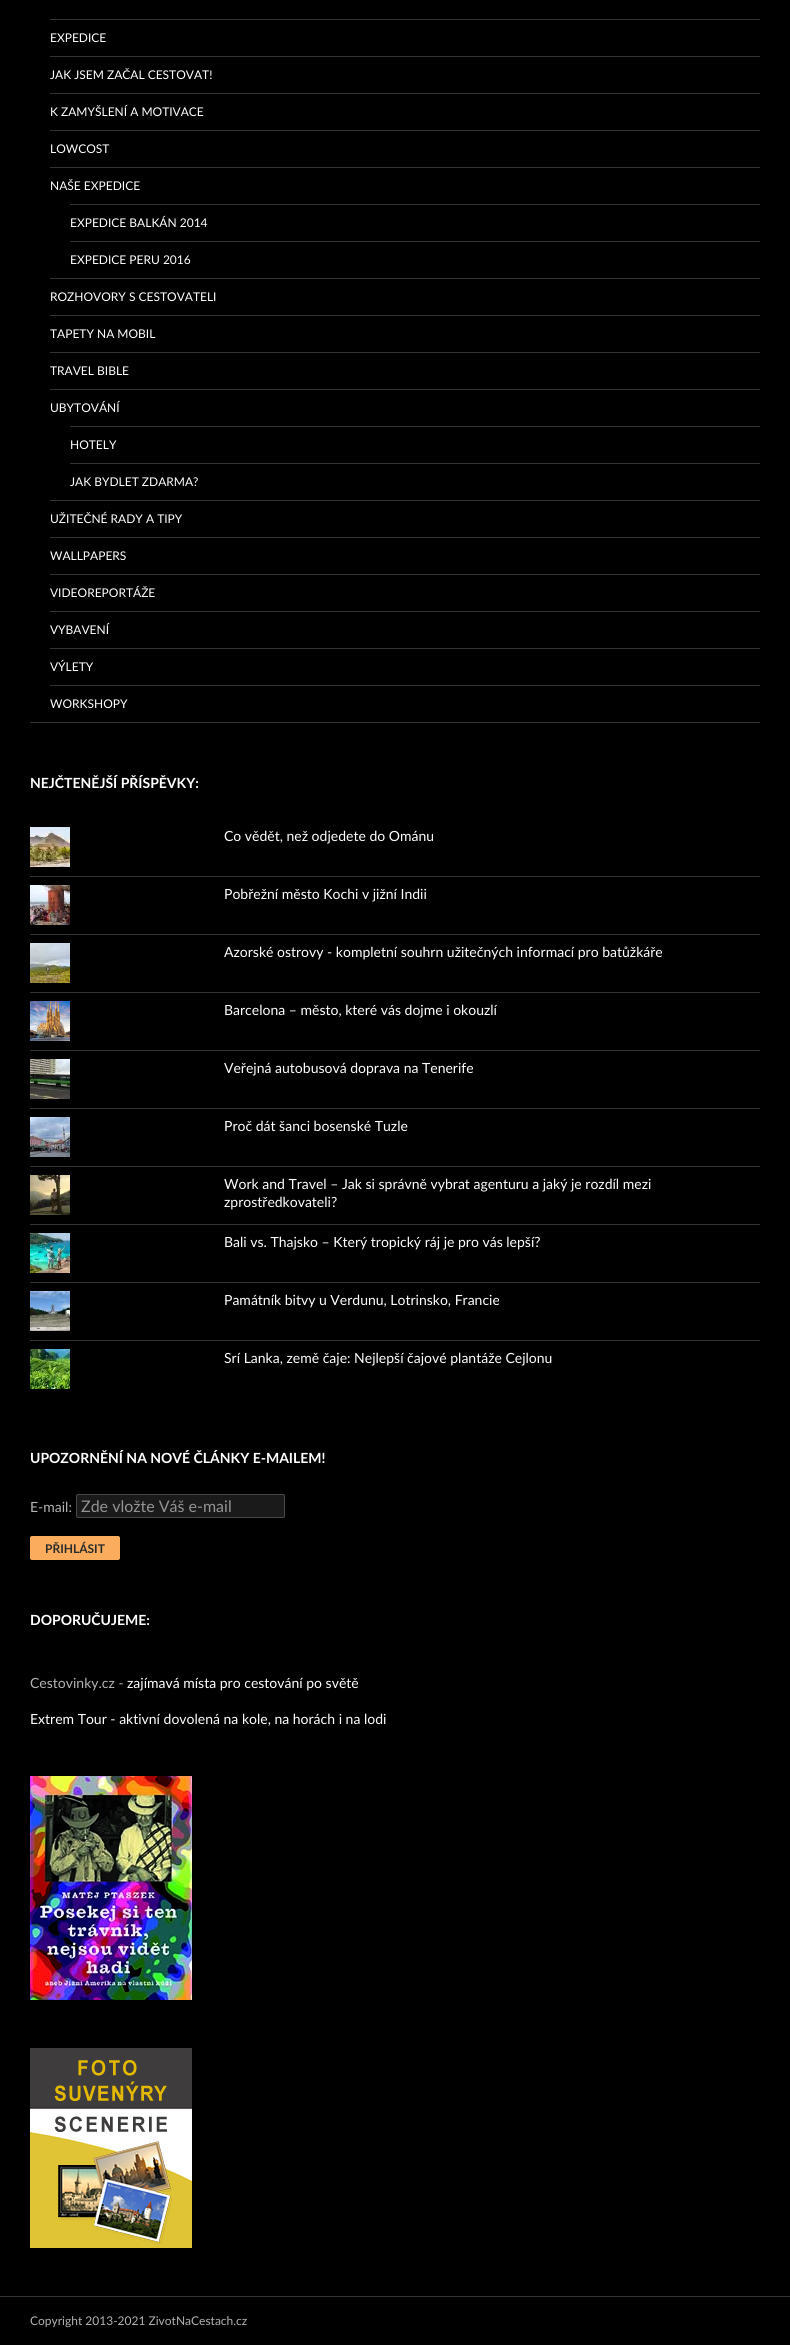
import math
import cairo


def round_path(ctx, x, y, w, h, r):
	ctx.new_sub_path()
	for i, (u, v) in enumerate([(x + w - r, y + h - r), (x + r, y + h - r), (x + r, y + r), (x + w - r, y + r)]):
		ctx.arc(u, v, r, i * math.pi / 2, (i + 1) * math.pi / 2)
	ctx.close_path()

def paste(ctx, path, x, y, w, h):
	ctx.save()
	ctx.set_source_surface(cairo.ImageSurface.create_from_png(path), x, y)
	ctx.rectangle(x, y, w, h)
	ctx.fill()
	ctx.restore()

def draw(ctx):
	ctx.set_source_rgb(0, 0, 0)
	ctx.paint()
	ctx.set_source_rgb(0.2, 0.2, 0.2)
	ctx.rectangle(0, 2296, 790, 1)
	ctx.rectangle(30, 722, 730, 1)
	ctx.rectangle(50, 19, 710, 1)
	ctx.fill()
	ctx.select_font_face('Lato')
	ctx.set_font_size(12)
	ctx.set_source_rgb(1, 1, 1)
	ctx.move_to(50, 42)
	ctx.show_text('EXPEDICE')
	ctx.set_source_rgb(0.2, 0.2, 0.2)
	ctx.rectangle(50, 56, 710, 1)
	ctx.fill()
	ctx.set_source_rgb(1, 1, 1)
	ctx.move_to(50, 79)
	ctx.show_text('JAK JSEM ZAČAL CESTOVAT!')
	ctx.set_source_rgb(0.2, 0.2, 0.2)
	ctx.rectangle(50, 93, 710, 1)
	ctx.fill()
	ctx.set_source_rgb(1, 1, 1)
	ctx.move_to(50, 116)
	ctx.show_text('K ZAMYŠLENÍ A MOTIVACE')
	ctx.set_source_rgb(0.2, 0.2, 0.2)
	ctx.rectangle(50, 130, 710, 1)
	ctx.fill()
	ctx.set_source_rgb(1, 1, 1)
	ctx.move_to(50, 153)
	ctx.show_text('LOWCOST')
	ctx.set_source_rgb(0.2, 0.2, 0.2)
	ctx.rectangle(50, 167, 710, 1)
	ctx.fill()
	ctx.set_source_rgb(1, 1, 1)
	ctx.move_to(50, 190)
	ctx.show_text('NAŠE EXPEDICE')
	ctx.set_source_rgb(0.2, 0.2, 0.2)
	ctx.rectangle(70, 204, 690, 1)
	ctx.fill()
	ctx.set_source_rgb(1, 1, 1)
	ctx.move_to(70, 227)
	ctx.show_text('EXPEDICE BALKÁN 2014')
	ctx.set_source_rgb(0.2, 0.2, 0.2)
	ctx.rectangle(70, 241, 690, 1)
	ctx.fill()
	ctx.set_source_rgb(1, 1, 1)
	ctx.move_to(70, 264)
	ctx.show_text('EXPEDICE PERU 2016')
	ctx.set_source_rgb(0.2, 0.2, 0.2)
	ctx.rectangle(50, 278, 710, 1)
	ctx.fill()
	ctx.set_source_rgb(1, 1, 1)
	ctx.move_to(50, 301)
	ctx.show_text('ROZHOVORY S CESTOVATELI')
	ctx.set_source_rgb(0.2, 0.2, 0.2)
	ctx.rectangle(50, 315, 710, 1)
	ctx.fill()
	ctx.set_source_rgb(1, 1, 1)
	ctx.move_to(50, 338)
	ctx.show_text('TAPETY NA MOBIL')
	ctx.set_source_rgb(0.2, 0.2, 0.2)
	ctx.rectangle(50, 352, 710, 1)
	ctx.fill()
	ctx.set_source_rgb(1, 1, 1)
	ctx.move_to(50, 375)
	ctx.show_text('TRAVEL BIBLE')
	ctx.set_source_rgb(0.2, 0.2, 0.2)
	ctx.rectangle(50, 389, 710, 1)
	ctx.fill()
	ctx.set_source_rgb(1, 1, 1)
	ctx.move_to(50, 412)
	ctx.show_text('UBYTOVÁNÍ')
	ctx.set_source_rgb(0.2, 0.2, 0.2)
	ctx.rectangle(70, 426, 690, 1)
	ctx.fill()
	ctx.set_source_rgb(1, 1, 1)
	ctx.move_to(70, 449)
	ctx.show_text('HOTELY')
	ctx.set_source_rgb(0.2, 0.2, 0.2)
	ctx.rectangle(70, 463, 690, 1)
	ctx.fill()
	ctx.set_source_rgb(1, 1, 1)
	ctx.move_to(70, 486)
	ctx.show_text('JAK BYDLET ZDARMA?')
	ctx.set_source_rgb(0.2, 0.2, 0.2)
	ctx.rectangle(50, 500, 710, 1)
	ctx.fill()
	ctx.set_source_rgb(1, 1, 1)
	ctx.move_to(50, 523)
	ctx.show_text('UŽITEČNÉ RADY A TIPY')
	ctx.set_source_rgb(0.2, 0.2, 0.2)
	ctx.rectangle(50, 537, 710, 1)
	ctx.fill()
	ctx.set_source_rgb(1, 1, 1)
	ctx.move_to(50, 560)
	ctx.show_text('WALLPAPERS')
	ctx.set_source_rgb(0.2, 0.2, 0.2)
	ctx.rectangle(50, 574, 710, 1)
	ctx.fill()
	ctx.set_source_rgb(1, 1, 1)
	ctx.move_to(50, 597)
	ctx.show_text('VIDEOREPORTÁŽE')
	ctx.set_source_rgb(0.2, 0.2, 0.2)
	ctx.rectangle(50, 611, 710, 1)
	ctx.fill()
	ctx.set_source_rgb(1, 1, 1)
	ctx.move_to(50, 634)
	ctx.show_text('VYBAVENÍ')
	ctx.set_source_rgb(0.2, 0.2, 0.2)
	ctx.rectangle(50, 648, 710, 1)
	ctx.fill()
	ctx.set_source_rgb(1, 1, 1)
	ctx.move_to(50, 671)
	ctx.show_text('VÝLETY')
	ctx.set_source_rgb(0.2, 0.2, 0.2)
	ctx.rectangle(50, 685, 710, 1)
	ctx.fill()
	ctx.set_source_rgb(1, 1, 1)
	ctx.move_to(50, 708)
	ctx.show_text('WORKSHOPY')
	ctx.select_font_face('Lato', cairo.FONT_SLANT_NORMAL, cairo.FONT_WEIGHT_BOLD)
	ctx.set_font_size(14)
	ctx.move_to(30, 788)
	ctx.show_text('NEJČTENĚJŠÍ PŘÍSPĚVKY:')
	paste(ctx, 'media/1.png', 30, 827, 40, 40)
	ctx.select_font_face('Lato')
	ctx.move_to(224, 841)
	ctx.show_text('Co vědět, než odjedete do Ománu')
	ctx.set_source_rgb(0.2, 0.2, 0.2)
	ctx.rectangle(30, 876, 730, 1)
	ctx.fill()
	paste(ctx, 'media/2.png', 30, 885, 40, 40)
	ctx.set_source_rgb(1, 1, 1)
	ctx.move_to(224, 899)
	ctx.show_text('Pobřežní město Kochi v jižní Indii')
	ctx.set_source_rgb(0.2, 0.2, 0.2)
	ctx.rectangle(30, 934, 730, 1)
	ctx.fill()
	paste(ctx, 'media/3.png', 30, 943, 40, 40)
	ctx.set_source_rgb(1, 1, 1)
	ctx.move_to(224, 957)
	ctx.show_text('Azorské ostrovy - kompletní souhrn užitečných informací pro batůžkáře')
	ctx.set_source_rgb(0.2, 0.2, 0.2)
	ctx.rectangle(30, 992, 730, 1)
	ctx.fill()
	paste(ctx, 'media/4.png', 30, 1001, 40, 40)
	ctx.set_source_rgb(1, 1, 1)
	ctx.move_to(224, 1015)
	ctx.show_text('Barcelona – město, které vás dojme i okouzlí')
	ctx.set_source_rgb(0.2, 0.2, 0.2)
	ctx.rectangle(30, 1050, 730, 1)
	ctx.fill()
	paste(ctx, 'media/5.png', 30, 1059, 40, 40)
	ctx.set_source_rgb(1, 1, 1)
	ctx.move_to(224, 1073)
	ctx.show_text('Veřejná autobusová doprava na Tenerife')
	ctx.set_source_rgb(0.2, 0.2, 0.2)
	ctx.rectangle(30, 1108, 730, 1)
	ctx.fill()
	paste(ctx, 'media/6.png', 30, 1117, 40, 40)
	ctx.set_source_rgb(1, 1, 1)
	ctx.move_to(224, 1131)
	ctx.show_text('Proč dát šanci bosenské Tuzle')
	ctx.set_source_rgb(0.2, 0.2, 0.2)
	ctx.rectangle(30, 1166, 730, 1)
	ctx.fill()
	paste(ctx, 'media/7.png', 30, 1175, 40, 40)
	ctx.set_source_rgb(1, 1, 1)
	ctx.move_to(224, 1189)
	ctx.show_text('Work and Travel – Jak si správně vybrat agenturu a jaký je rozdíl mezi')
	ctx.move_to(224, 1207)
	ctx.show_text('zprostředkovateli?')
	ctx.set_source_rgb(0.2, 0.2, 0.2)
	ctx.rectangle(30, 1224, 730, 1)
	ctx.fill()
	paste(ctx, 'media/8.png', 30, 1233, 40, 40)
	ctx.set_source_rgb(1, 1, 1)
	ctx.move_to(224, 1247)
	ctx.show_text('Bali vs. Thajsko – Který tropický ráj je pro vás lepší?')
	ctx.set_source_rgb(0.2, 0.2, 0.2)
	ctx.rectangle(30, 1282, 730, 1)
	ctx.fill()
	paste(ctx, 'media/9.png', 30, 1291, 40, 40)
	ctx.set_source_rgb(1, 1, 1)
	ctx.move_to(224, 1305)
	ctx.show_text('Památník bitvy u Verdunu, Lotrinsko, Francie')
	ctx.set_source_rgb(0.2, 0.2, 0.2)
	ctx.rectangle(30, 1340, 730, 1)
	ctx.fill()
	paste(ctx, 'media/10.png', 30, 1349, 40, 40)
	ctx.set_source_rgb(1, 1, 1)
	ctx.move_to(224, 1363)
	ctx.show_text('Srí Lanka, země čaje: Nejlepší čajové plantáže Cejlonu')
	ctx.select_font_face('Lato', cairo.FONT_SLANT_NORMAL, cairo.FONT_WEIGHT_BOLD)
	ctx.move_to(30, 1463)
	ctx.show_text('UPOZORNĚNÍ NA NOVÉ ČLÁNKY E-MAILEM!')
	ctx.select_font_face('Lato')
	ctx.set_source_rgb(0.702, 0.702, 0.702)
	ctx.move_to(30, 1512)
	ctx.show_text('E-mail:')
	ctx.set_source_rgb(0.102, 0.102, 0.102)
	round_path(ctx, 76, 1494, 209, 24, 2)
	ctx.fill()
	round_path(ctx, 76.5, 1494.5, 208, 23, 1.5)
	ctx.set_source_rgba(1, 1, 1, 0.2)
	ctx.set_line_width(1)
	ctx.stroke()
	ctx.set_font_size(16)
	ctx.set_source_rgb(0.576, 0.576, 0.576)
	ctx.move_to(81, 1512)
	ctx.show_text('Zde vložte Váš e-mail')
	ctx.set_source_rgb(0.988, 0.675, 0.365)
	round_path(ctx, 30, 1536, 90, 24, 2)
	ctx.fill()
	ctx.select_font_face('Lato', cairo.FONT_SLANT_NORMAL, cairo.FONT_WEIGHT_BOLD)
	ctx.set_font_size(12)
	ctx.set_source_rgb(0.169, 0.169, 0.169)
	ctx.move_to(45, 1553)
	ctx.show_text('PŘIHLÁSIT')
	ctx.set_font_size(14)
	ctx.set_source_rgb(1, 1, 1)
	ctx.move_to(30, 1625)
	ctx.show_text('DOPORUČUJEME:')
	ctx.select_font_face('Lato')
	ctx.set_source_rgb(0.702, 0.702, 0.702)
	ctx.move_to(30, 1688)
	ctx.show_text('Cestovinky.cz -')
	ctx.set_source_rgb(1, 1, 1)
	ctx.move_to(127, 1688)
	ctx.show_text('zajímavá místa pro cestování po světě')
	ctx.move_to(30, 1724)
	ctx.show_text('Extrem Tour - aktivní dovolená na kole, na horách i na lodi')
	paste(ctx, 'media/11.png', 30, 1776, 162, 224)
	paste(ctx, 'media/12.png', 30, 2048, 162, 200)
	ctx.set_font_size(12)
	ctx.set_source_rgb(0.702, 0.702, 0.702)
	ctx.move_to(30, 2325)
	ctx.show_text('Copyright 2013-2021 ZivotNaCestach.cz')


surface = cairo.ImageSurface(cairo.FORMAT_RGB24, 790, 2345)
ctx = cairo.Context(surface)
options = cairo.FontOptions()
options.set_hint_metrics(cairo.HINT_METRICS_OFF)
options.set_hint_style(cairo.HINT_STYLE_NONE)
ctx.set_font_options(options)
ctx.set_miter_limit(4)
draw(ctx)
surface.write_to_png('image.png')
